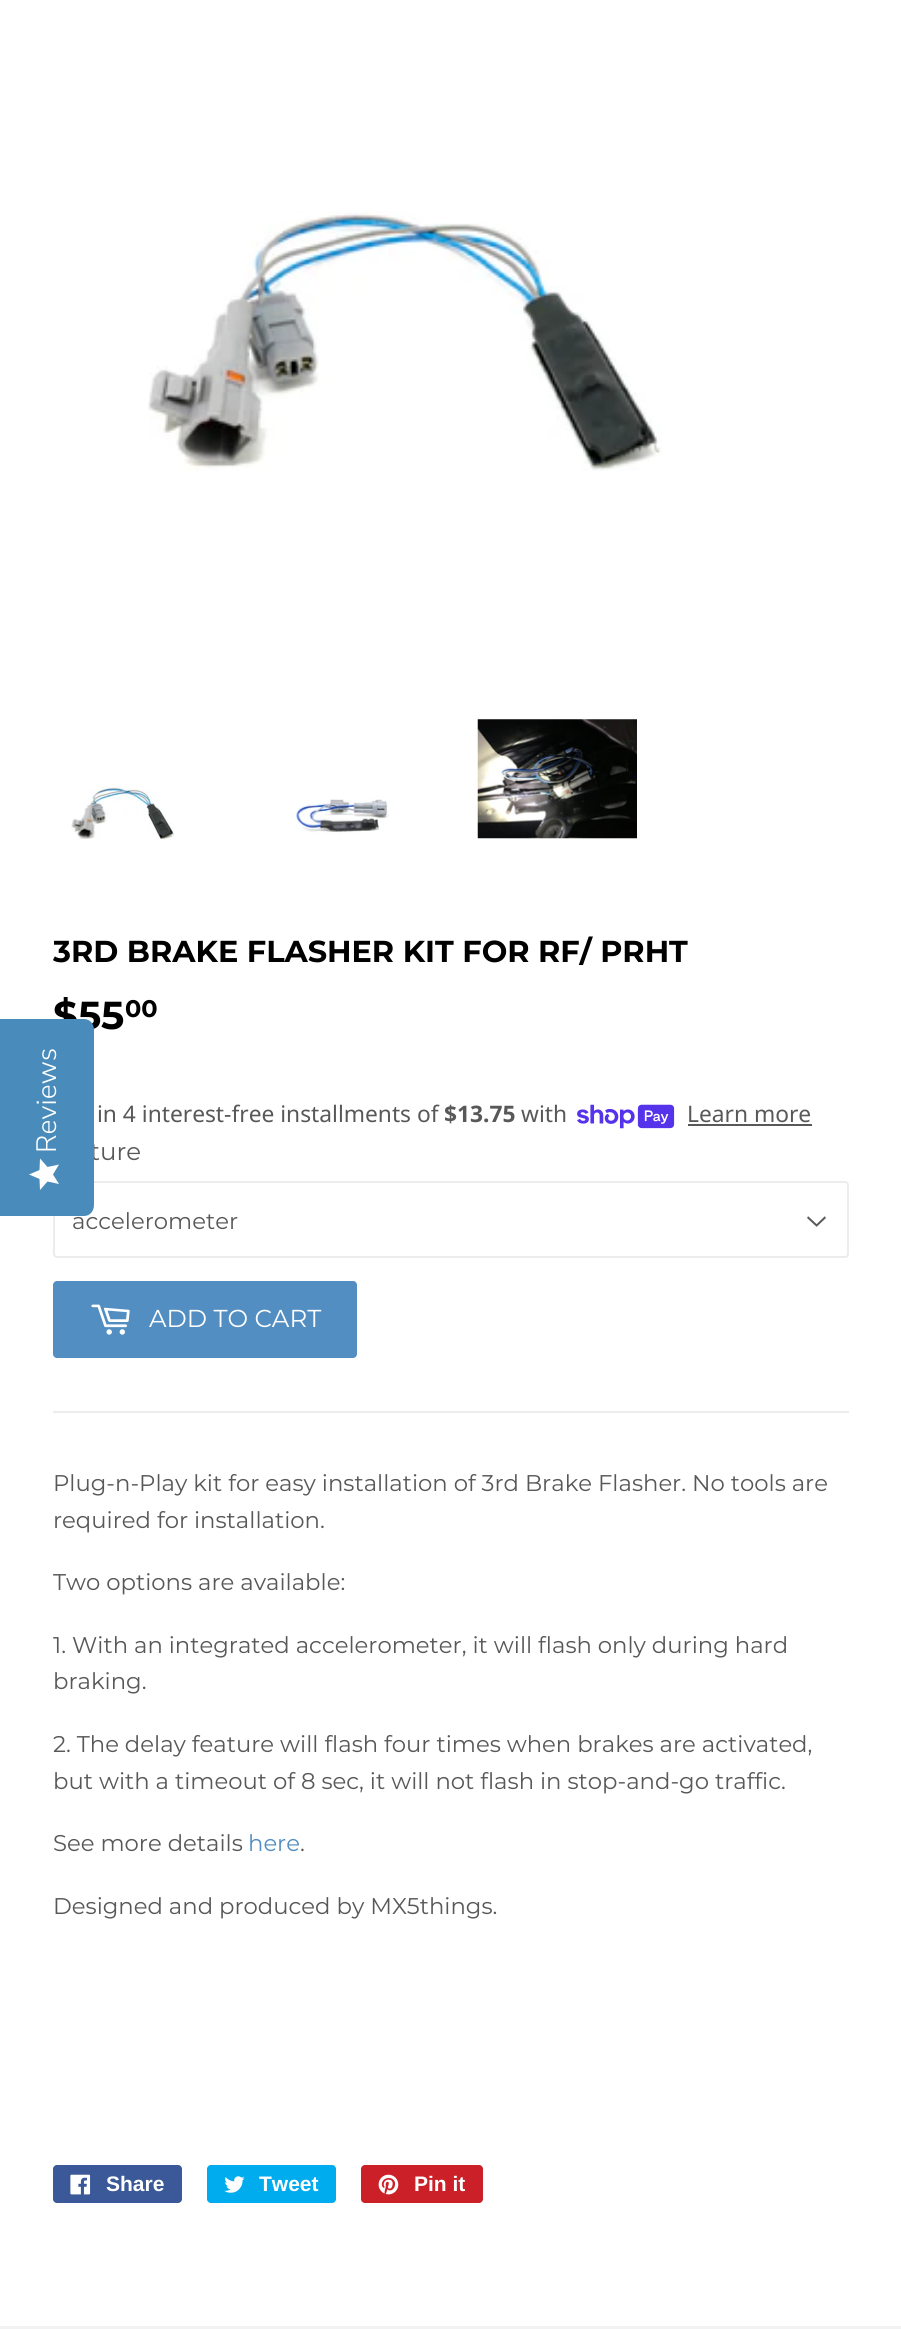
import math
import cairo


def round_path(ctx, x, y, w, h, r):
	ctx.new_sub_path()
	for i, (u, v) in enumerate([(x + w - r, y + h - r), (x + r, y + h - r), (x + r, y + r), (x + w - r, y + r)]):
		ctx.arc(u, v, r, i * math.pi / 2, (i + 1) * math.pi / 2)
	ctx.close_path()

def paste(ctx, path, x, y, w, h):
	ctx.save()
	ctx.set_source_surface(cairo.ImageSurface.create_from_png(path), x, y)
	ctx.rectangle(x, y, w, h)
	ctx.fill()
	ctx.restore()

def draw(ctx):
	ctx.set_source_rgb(1, 1, 1)
	ctx.paint()
	ctx.select_font_face('Montserrat', cairo.FONT_SLANT_NORMAL, cairo.FONT_WEIGHT_BOLD)
	ctx.set_font_size(39)
	ctx.set_source_rgb(0, 0, 0)
	ctx.move_to(53, 1029)
	ctx.show_text('$55')
	ctx.select_font_face('Montserrat')
	ctx.set_font_size(24.5)
	ctx.set_source_rgb(0.345, 0.345, 0.345)
	ctx.move_to(90, 1160)
	ctx.show_text('ture')
	paste(ctx, 'media/6.png', 807, 1216, 19, 11)
	round_path(ctx, 54, 1182, 794, 75, 3)
	ctx.set_source_rgb(0.925, 0.925, 0.925)
	ctx.stroke()
	ctx.set_font_size(22.75)
	ctx.set_source_rgb(0.345, 0.345, 0.345)
	ctx.move_to(72, 1229)
	ctx.show_text('accelerometer')
	ctx.set_source_rgb(0.286, 0.549, 0.737)
	ctx.new_path()
	ctx.move_to(0, 1216)
	ctx.line_to(0, 1019)
	ctx.line_to(84, 1019)
	ctx.curve_to(90, 1019, 94, 1024, 94, 1030)
	ctx.line_to(94, 1205)
	ctx.curve_to(94, 1211, 90, 1216, 84, 1216)
	ctx.close_path()
	ctx.fill()
	ctx.select_font_face('Nunito Sans Light')
	ctx.set_font_size(28)
	ctx.set_source_rgb(1, 1, 1)
	ctx.save()
	ctx.translate(56, 1153)
	ctx.rotate(-90 * math.pi / 180)
	ctx.move_to(0, 0)
	ctx.show_text('Reviews')
	ctx.restore()
	gradient = cairo.LinearGradient(29, 1190, 29, 1159)
	gradient.add_color_stop_rgba(1, 0.996, 0.996, 0.996, 1)
	gradient.add_color_stop_rgba(1, 0.918, 0.918, 0.918, 1)
	ctx.set_source(gradient)
	ctx.new_path()
	ctx.move_to(53, 1174.5)
	ctx.line_to(59, 1164.5)
	ctx.line_to(47.5, 1167)
	ctx.line_to(40, 1158.5)
	ctx.line_to(39.5, 1170)
	ctx.line_to(29, 1174.5)
	ctx.line_to(39.5, 1179)
	ctx.line_to(40, 1190)
	ctx.line_to(47.5, 1181.5)
	ctx.line_to(59, 1184)
	ctx.close_path()
	ctx.fill()
	paste(ctx, 'media/1.png', 148, 211, 514, 260)
	paste(ctx, 'media/2.png', 71, 786, 103, 53)
	paste(ctx, 'media/3.png', 295, 799, 94, 35)
	paste(ctx, 'media/4.png', 477, 719, 160, 120)
	ctx.select_font_face('Montserrat', cairo.FONT_SLANT_NORMAL, cairo.FONT_WEIGHT_BOLD)
	ctx.set_font_size(30.3)
	ctx.set_source_rgb(0, 0, 0)
	ctx.move_to(53, 962)
	ctx.show_text('3RD BRAKE FLASHER KIT FOR RF/ PRHT')
	ctx.set_font_size(24)
	ctx.move_to(125, 1017)
	ctx.show_text('00')
	ctx.select_font_face('Noto Sans')
	ctx.set_font_size(22.75)
	ctx.set_source_rgb(0.345, 0.345, 0.345)
	ctx.move_to(97, 1122)
	ctx.show_text('in 4 interest-free installments of')
	ctx.select_font_face('Noto Sans', cairo.FONT_SLANT_NORMAL, cairo.FONT_WEIGHT_BOLD)
	ctx.move_to(444, 1122)
	ctx.show_text('$13.75')
	ctx.select_font_face('Noto Sans')
	ctx.move_to(521, 1122)
	ctx.show_text('with')
	paste(ctx, 'media/5.png', 577, 1104, 98, 25)
	ctx.move_to(687, 1122)
	ctx.show_text('Learn more')
	ctx.rectangle(688, 1124, 124, 2)
	ctx.fill()
	ctx.set_source_rgb(0.322, 0.557, 0.757)
	round_path(ctx, 53, 1281, 304, 77, 4)
	ctx.fill()
	paste(ctx, 'media/7.png', 91, 1304, 39, 31)
	ctx.select_font_face('Montserrat')
	ctx.set_font_size(24.5)
	ctx.set_source_rgb(1, 1, 1)
	ctx.move_to(149, 1327)
	ctx.show_text('ADD TO CART')
	ctx.set_source_rgb(0.925, 0.925, 0.925)
	ctx.rectangle(53, 1411, 796, 2)
	ctx.fill()
	ctx.set_font_size(22.75)
	ctx.set_source_rgb(0.345, 0.345, 0.345)
	for x, y, s in [
		(53, 1491, 'Plug-n-Play kit for easy installation of 3rd Brake Flasher. No tools are'),
		(53, 1528, 'required for installation.'),
		(53, 1590, 'Two options are available:'),
		(53, 1653, '1. With an integrated accelerometer, it will flash only during hard'),
		(53, 1689, 'braking.'),
		(53, 1752, '2. The delay feature will flash four times when brakes are activated,'),
		(53, 1789, 'but with a timeout of 8 sec, it will not flash in stop-and-go traffic.'),
		(53, 1851, 'See more details'),
	]:
		ctx.move_to(x, y)
		ctx.show_text(s)
	ctx.set_source_rgb(0.322, 0.557, 0.757)
	ctx.move_to(248, 1851)
	ctx.show_text('here')
	ctx.set_source_rgb(0.345, 0.345, 0.345)
	ctx.move_to(300, 1851)
	ctx.show_text('.')
	ctx.move_to(53, 1914)
	ctx.show_text('Designed and produced by MX5things.')
	ctx.set_source_rgb(0.231, 0.349, 0.596)
	round_path(ctx, 53, 2165, 129, 38, 4)
	ctx.fill()
	paste(ctx, 'media/8.png', 70, 2174, 21, 21)
	ctx.select_font_face('Liberation Sans', cairo.FONT_SLANT_NORMAL, cairo.FONT_WEIGHT_BOLD)
	ctx.set_font_size(21)
	ctx.set_source_rgb(1, 1, 1)
	ctx.move_to(106, 2191)
	ctx.show_text('Share')
	ctx.set_source_rgb(0, 0.675, 0.929)
	round_path(ctx, 207, 2165, 129, 38, 4)
	ctx.fill()
	paste(ctx, 'media/9.png', 224, 2176, 21, 17)
	ctx.set_source_rgb(1, 1, 1)
	ctx.move_to(259, 2191)
	ctx.show_text('Tweet')
	ctx.set_source_rgb(0.796, 0.125, 0.153)
	round_path(ctx, 361, 2165, 122, 38, 4)
	ctx.fill()
	paste(ctx, 'media/10.png', 378, 2174, 21, 21)
	ctx.set_source_rgb(1, 1, 1)
	ctx.move_to(414, 2191)
	ctx.show_text('Pin it')
	ctx.set_source_rgb(0.949, 0.949, 0.949)
	ctx.rectangle(0, 2326, 901, 3)
	ctx.fill()


surface = cairo.ImageSurface(cairo.FORMAT_RGB24, 901, 2329)
ctx = cairo.Context(surface)
options = cairo.FontOptions()
options.set_hint_metrics(cairo.HINT_METRICS_OFF)
options.set_hint_style(cairo.HINT_STYLE_NONE)
ctx.set_font_options(options)
ctx.set_miter_limit(4)
draw(ctx)
surface.write_to_png('image.png')
